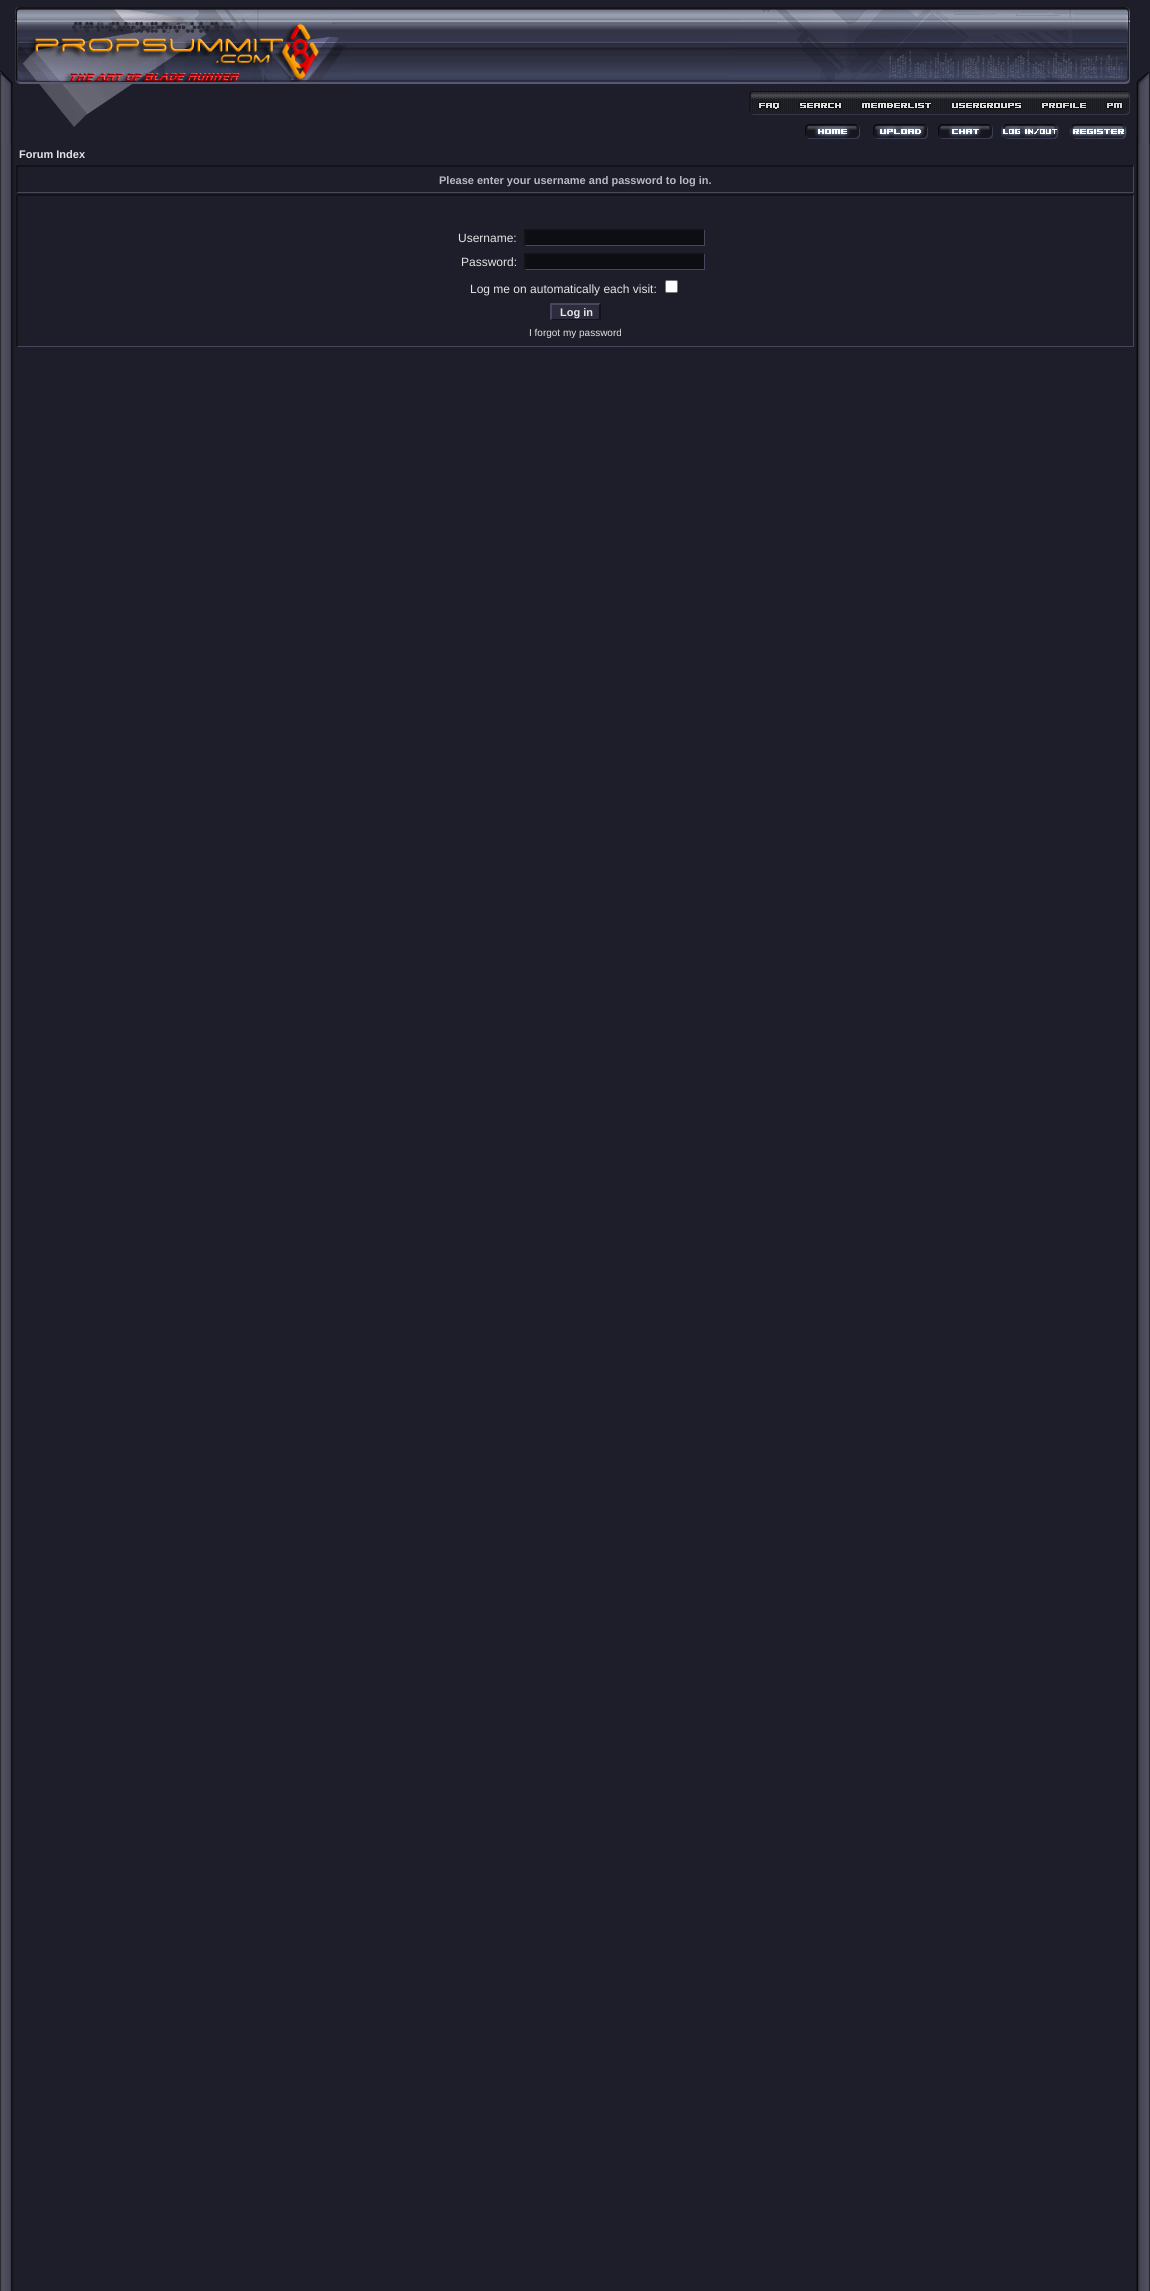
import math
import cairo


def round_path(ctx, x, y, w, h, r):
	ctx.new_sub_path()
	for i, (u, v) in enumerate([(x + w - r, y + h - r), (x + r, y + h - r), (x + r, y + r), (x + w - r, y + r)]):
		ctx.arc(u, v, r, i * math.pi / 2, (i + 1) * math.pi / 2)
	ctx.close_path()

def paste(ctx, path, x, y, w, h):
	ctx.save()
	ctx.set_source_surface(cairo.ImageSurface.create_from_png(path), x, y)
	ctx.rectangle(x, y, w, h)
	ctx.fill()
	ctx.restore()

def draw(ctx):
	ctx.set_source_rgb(0.118, 0.118, 0.165)
	ctx.paint()
	paste(ctx, 'media/1.png', 15, 7, 333, 3)
	paste(ctx, 'media/2.png', 348, 7, 383, 77)
	paste(ctx, 'media/3.png', 731, 7, 418, 85)
	paste(ctx, 'media/4.png', 0, 10, 18, 134)
	paste(ctx, 'media/5.png', 18, 10, 330, 72)
	paste(ctx, 'media/6.png', 18, 82, 330, 45)
	paste(ctx, 'media/7.png', 749, 92, 2, 21)
	paste(ctx, 'media/8.png', 751, 92, 39, 22)
	paste(ctx, 'media/9.png', 790, 92, 59, 22)
	paste(ctx, 'media/10.png', 849, 92, 91, 22)
	paste(ctx, 'media/11.png', 940, 92, 90, 22)
	paste(ctx, 'media/12.png', 1030, 92, 63, 22)
	paste(ctx, 'media/13.png', 1093, 92, 35, 22)
	paste(ctx, 'media/14.png', 1128, 92, 21, 52)
	paste(ctx, 'media/15.png', 752, 114, 376, 1)
	paste(ctx, 'media/16.png', 805, 124, 55, 15)
	paste(ctx, 'media/17.png', 873, 124, 55, 15)
	paste(ctx, 'media/18.png', 938, 124, 55, 15)
	paste(ctx, 'media/19.png', 1001, 124, 59, 15)
	paste(ctx, 'media/20.png', 1069, 124, 58, 15)
	paste(ctx, 'media/21.png', 0, 144, 14, 2147)
	ctx.select_font_face('Liberation Sans', cairo.FONT_SLANT_NORMAL, cairo.FONT_WEIGHT_BOLD)
	ctx.set_font_size(11)
	ctx.set_source_rgb(0.894, 0.894, 0.894)
	ctx.move_to(19, 158)
	ctx.show_text('Forum Index')
	ctx.set_source_rgb(0.071, 0.075, 0.086)
	ctx.new_path()
	ctx.move_to(16, 165)
	ctx.line_to(1134, 165)
	ctx.line_to(1133, 167)
	ctx.line_to(18, 167)
	ctx.close_path()
	ctx.fill()
	ctx.set_source_rgb(0.278, 0.278, 0.365)
	ctx.new_path()
	ctx.move_to(1134, 165)
	ctx.line_to(1134, 193)
	ctx.line_to(1133, 192)
	ctx.line_to(1133, 167)
	ctx.close_path()
	ctx.fill()
	ctx.new_path()
	ctx.move_to(1134, 193)
	ctx.line_to(16, 193)
	ctx.line_to(18, 192)
	ctx.line_to(1133, 192)
	ctx.close_path()
	ctx.fill()
	ctx.set_source_rgb(0.071, 0.075, 0.086)
	ctx.new_path()
	ctx.move_to(16, 193)
	ctx.line_to(16, 165)
	ctx.line_to(18, 167)
	ctx.line_to(18, 192)
	ctx.close_path()
	ctx.fill()
	ctx.set_source_rgb(0.718, 0.729, 0.773)
	ctx.move_to(439, 184)
	ctx.show_text('Please enter your username and password to log in.')
	ctx.set_source_rgb(0.071, 0.075, 0.086)
	ctx.new_path()
	ctx.move_to(16, 194)
	ctx.line_to(1134, 194)
	ctx.line_to(1133, 196)
	ctx.line_to(18, 196)
	ctx.close_path()
	ctx.fill()
	ctx.set_source_rgb(0.278, 0.278, 0.365)
	ctx.new_path()
	ctx.move_to(1134, 194)
	ctx.line_to(1134, 347)
	ctx.line_to(1133, 346)
	ctx.line_to(1133, 196)
	ctx.close_path()
	ctx.fill()
	ctx.new_path()
	ctx.move_to(1134, 347)
	ctx.line_to(16, 347)
	ctx.line_to(18, 346)
	ctx.line_to(1133, 346)
	ctx.close_path()
	ctx.fill()
	ctx.set_source_rgb(0.071, 0.075, 0.086)
	ctx.new_path()
	ctx.move_to(16, 347)
	ctx.line_to(16, 194)
	ctx.line_to(18, 196)
	ctx.line_to(18, 346)
	ctx.close_path()
	ctx.fill()
	ctx.select_font_face('Liberation Sans')
	ctx.set_font_size(12)
	ctx.set_source_rgb(0.894, 0.894, 0.894)
	ctx.move_to(458, 242)
	ctx.show_text('Username:')
	ctx.set_source_rgb(0.051, 0.055, 0.075)
	ctx.rectangle(526, 231, 178, 14)
	ctx.fill()
	ctx.set_source_rgb(0.071, 0.075, 0.086)
	ctx.new_path()
	ctx.move_to(524, 229)
	ctx.line_to(705, 229)
	ctx.line_to(704, 231)
	ctx.line_to(526, 231)
	ctx.close_path()
	ctx.fill()
	ctx.set_source_rgb(0.278, 0.278, 0.365)
	ctx.new_path()
	ctx.move_to(705, 229)
	ctx.line_to(705, 246)
	ctx.line_to(704, 245)
	ctx.line_to(704, 231)
	ctx.close_path()
	ctx.fill()
	ctx.new_path()
	ctx.move_to(705, 246)
	ctx.line_to(524, 246)
	ctx.line_to(526, 245)
	ctx.line_to(704, 245)
	ctx.close_path()
	ctx.fill()
	ctx.set_source_rgb(0.071, 0.075, 0.086)
	ctx.new_path()
	ctx.move_to(524, 246)
	ctx.line_to(524, 229)
	ctx.line_to(526, 231)
	ctx.line_to(526, 245)
	ctx.close_path()
	ctx.fill()
	ctx.set_source_rgb(0.894, 0.894, 0.894)
	ctx.move_to(461, 266)
	ctx.show_text('Password:')
	ctx.set_source_rgb(0.051, 0.055, 0.075)
	ctx.rectangle(526, 255, 178, 14)
	ctx.fill()
	ctx.set_source_rgb(0.071, 0.075, 0.086)
	ctx.new_path()
	ctx.move_to(524, 253)
	ctx.line_to(705, 253)
	ctx.line_to(704, 255)
	ctx.line_to(526, 255)
	ctx.close_path()
	ctx.fill()
	ctx.set_source_rgb(0.278, 0.278, 0.365)
	ctx.new_path()
	ctx.move_to(705, 253)
	ctx.line_to(705, 270)
	ctx.line_to(704, 269)
	ctx.line_to(704, 255)
	ctx.close_path()
	ctx.fill()
	ctx.new_path()
	ctx.move_to(705, 270)
	ctx.line_to(524, 270)
	ctx.line_to(526, 269)
	ctx.line_to(704, 269)
	ctx.close_path()
	ctx.fill()
	ctx.set_source_rgb(0.071, 0.075, 0.086)
	ctx.new_path()
	ctx.move_to(524, 270)
	ctx.line_to(524, 253)
	ctx.line_to(526, 255)
	ctx.line_to(526, 269)
	ctx.close_path()
	ctx.fill()
	ctx.set_source_rgb(0.894, 0.894, 0.894)
	ctx.move_to(470, 293)
	ctx.show_text('Log me on automatically each visit:')
	ctx.set_source_rgb(1, 1, 1)
	round_path(ctx, 665.5, 280.5, 12, 12, 1.5)
	ctx.fill_preserve()
	ctx.set_source_rgb(0.463, 0.463, 0.463)
	ctx.set_line_width(1)
	ctx.stroke()
	ctx.set_source_rgb(0.173, 0.173, 0.235)
	ctx.rectangle(552, 305, 47, 14)
	ctx.fill()
	ctx.set_source_rgb(0.278, 0.278, 0.365)
	ctx.new_path()
	ctx.move_to(550, 303)
	ctx.line_to(601, 303)
	ctx.line_to(599, 305)
	ctx.line_to(552, 305)
	ctx.close_path()
	ctx.fill()
	ctx.set_source_rgb(0.071, 0.075, 0.086)
	ctx.new_path()
	ctx.move_to(601, 303)
	ctx.line_to(601, 320)
	ctx.line_to(599, 319)
	ctx.line_to(599, 305)
	ctx.close_path()
	ctx.fill()
	ctx.new_path()
	ctx.move_to(601, 320)
	ctx.line_to(550, 320)
	ctx.line_to(552, 319)
	ctx.line_to(599, 319)
	ctx.close_path()
	ctx.fill()
	ctx.set_source_rgb(0.278, 0.278, 0.365)
	ctx.new_path()
	ctx.move_to(550, 320)
	ctx.line_to(550, 303)
	ctx.line_to(552, 305)
	ctx.line_to(552, 319)
	ctx.close_path()
	ctx.fill()
	ctx.select_font_face('Liberation Sans', cairo.FONT_SLANT_NORMAL, cairo.FONT_WEIGHT_BOLD)
	ctx.set_font_size(11)
	ctx.set_source_rgb(0.894, 0.894, 0.894)
	ctx.move_to(560, 316)
	ctx.show_text('Log in')
	ctx.select_font_face('Liberation Sans')
	ctx.set_font_size(10)
	ctx.move_to(529, 336)
	ctx.show_text('I forgot my password')
	paste(ctx, 'media/22.png', 1136, 144, 14, 2147)


surface = cairo.ImageSurface(cairo.FORMAT_RGB24, 1150, 2291)
ctx = cairo.Context(surface)
options = cairo.FontOptions()
options.set_hint_metrics(cairo.HINT_METRICS_OFF)
options.set_hint_style(cairo.HINT_STYLE_NONE)
ctx.set_font_options(options)
ctx.set_miter_limit(4)
draw(ctx)
surface.write_to_png('image.png')
